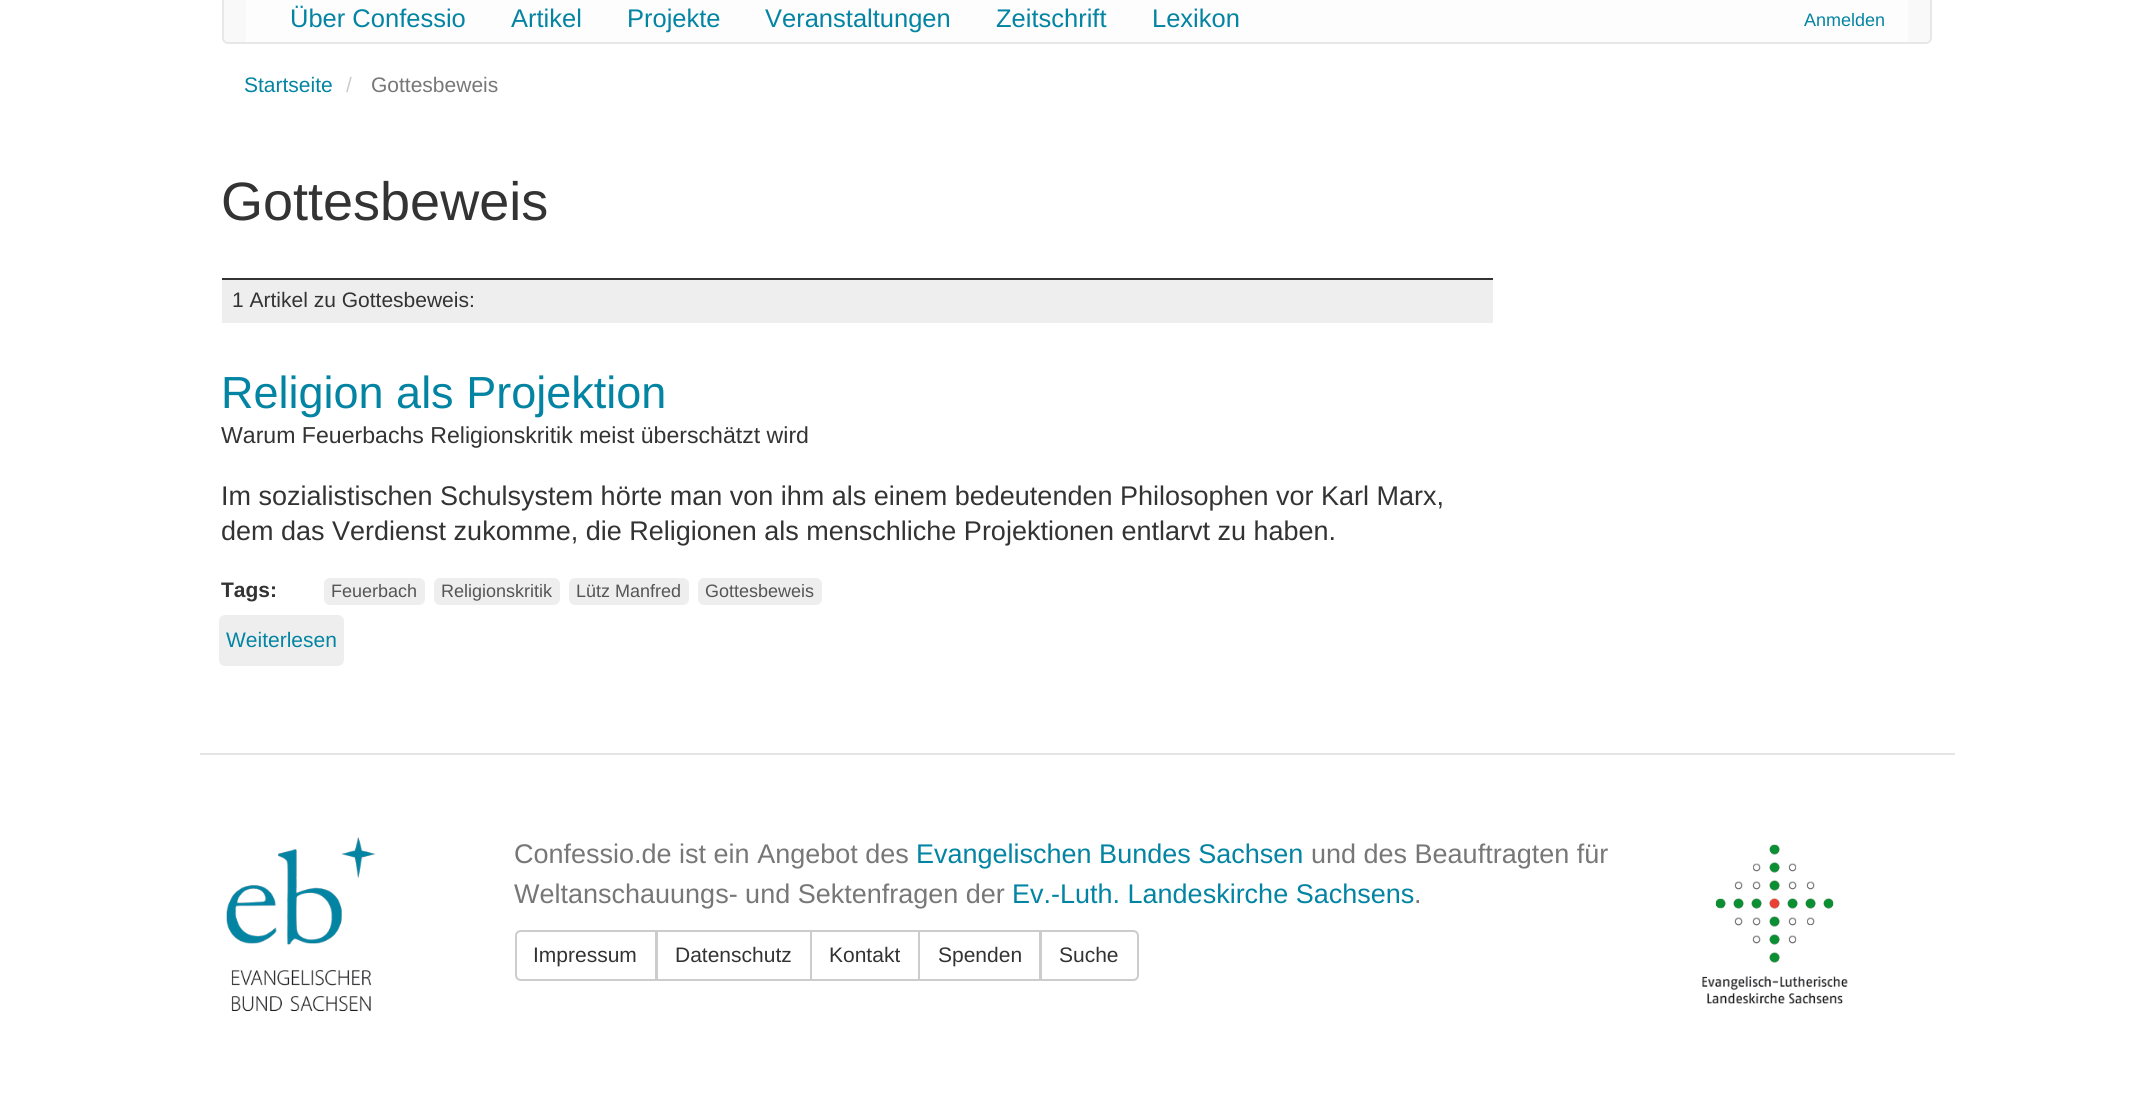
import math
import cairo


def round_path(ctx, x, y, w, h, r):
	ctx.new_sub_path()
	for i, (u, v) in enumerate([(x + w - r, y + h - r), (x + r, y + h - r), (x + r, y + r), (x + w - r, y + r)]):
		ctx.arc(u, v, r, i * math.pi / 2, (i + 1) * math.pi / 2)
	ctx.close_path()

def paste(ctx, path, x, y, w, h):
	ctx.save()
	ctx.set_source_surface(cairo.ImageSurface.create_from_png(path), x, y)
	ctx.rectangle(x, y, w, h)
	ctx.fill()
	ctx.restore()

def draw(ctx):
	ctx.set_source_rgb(1, 1, 1)
	ctx.paint()
	ctx.set_source_rgb(0.973, 0.973, 0.973)
	round_path(ctx, 223, -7, 1708, 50, 5)
	ctx.fill_preserve()
	ctx.set_source_rgb(0.906, 0.906, 0.906)
	ctx.stroke()
	ctx.set_source_rgb(0.992, 0.992, 0.992)
	ctx.rectangle(246, 0, 1662, 42)
	ctx.fill()
	ctx.select_font_face('Liberation Sans')
	ctx.set_font_size(25.5)
	ctx.set_source_rgb(0.012, 0.518, 0.639)
	for x, y, s in [
		(290, 27, 'Über Confessio'),
		(511, 27, 'Artikel'),
		(627, 27, 'Projekte'),
		(765, 27, 'Veranstaltungen'),
		(996, 27, 'Zeitschrift'),
		(1152, 27, 'Lexikon'),
	]:
		ctx.move_to(x, y)
		ctx.show_text(s)
	ctx.set_font_size(18)
	ctx.move_to(1804, 26)
	ctx.show_text('Anmelden')
	ctx.set_font_size(21)
	ctx.move_to(244, 92)
	ctx.show_text('Startseite')
	ctx.set_source_rgb(0.8, 0.8, 0.8)
	ctx.move_to(346, 92)
	ctx.show_text('/')
	ctx.set_source_rgb(0.467, 0.467, 0.467)
	ctx.move_to(371, 92)
	ctx.show_text('Gottesbeweis')
	ctx.set_font_size(54)
	ctx.set_source_rgb(0.2, 0.2, 0.2)
	ctx.move_to(221, 220)
	ctx.show_text('Gottesbeweis')
	ctx.set_source_rgb(0.933, 0.933, 0.933)
	ctx.rectangle(222, 280, 1271, 43)
	ctx.fill()
	ctx.set_source_rgb(0.2, 0.2, 0.2)
	ctx.rectangle(222, 278, 1271, 2)
	ctx.fill()
	ctx.set_font_size(21)
	ctx.move_to(232, 307)
	ctx.show_text('1 Artikel zu Gottesbeweis:')
	ctx.set_font_size(45)
	ctx.set_source_rgb(0.012, 0.518, 0.639)
	ctx.move_to(221, 408)
	ctx.show_text('Religion als Projektion')
	ctx.set_font_size(23.1)
	ctx.set_source_rgb(0.2, 0.2, 0.2)
	ctx.move_to(221, 443)
	ctx.show_text('Warum Feuerbachs Religionskritik meist überschätzt wird')
	ctx.set_font_size(27)
	ctx.move_to(221, 505)
	ctx.show_text('Im sozialistischen Schulsystem hörte man von ihm als einem bedeutenden Philosophen vor Karl Marx,')
	ctx.move_to(221, 540)
	ctx.show_text('dem das Verdienst zukomme, die Religionen als menschliche Projektionen entlarvt zu haben.')
	ctx.select_font_face('Liberation Sans', cairo.FONT_SLANT_NORMAL, cairo.FONT_WEIGHT_BOLD)
	ctx.set_font_size(21)
	ctx.move_to(221, 597)
	ctx.show_text('Tags:')
	ctx.set_source_rgb(0.933, 0.933, 0.933)
	round_path(ctx, 324, 578, 101, 27, 6)
	ctx.fill()
	ctx.select_font_face('Liberation Sans')
	ctx.set_font_size(18)
	ctx.set_source_rgb(0.333, 0.333, 0.333)
	ctx.move_to(331, 597)
	ctx.show_text('Feuerbach')
	ctx.set_source_rgb(0.933, 0.933, 0.933)
	round_path(ctx, 434, 578, 126, 27, 6)
	ctx.fill()
	ctx.set_source_rgb(0.333, 0.333, 0.333)
	ctx.move_to(441, 597)
	ctx.show_text('Religionskritik')
	ctx.set_source_rgb(0.933, 0.933, 0.933)
	round_path(ctx, 569, 578, 120, 27, 6)
	ctx.fill()
	ctx.set_source_rgb(0.333, 0.333, 0.333)
	ctx.move_to(576, 597)
	ctx.show_text('Lütz Manfred')
	ctx.set_source_rgb(0.933, 0.933, 0.933)
	round_path(ctx, 698, 578, 124, 27, 6)
	ctx.fill()
	ctx.set_source_rgb(0.333, 0.333, 0.333)
	ctx.move_to(705, 597)
	ctx.show_text('Gottesbeweis')
	ctx.set_source_rgb(0.933, 0.933, 0.933)
	round_path(ctx, 219, 615, 125, 51, 6)
	ctx.fill()
	ctx.set_font_size(21)
	ctx.set_source_rgb(0.012, 0.518, 0.639)
	ctx.move_to(226, 647)
	ctx.show_text('Weiterlesen')
	ctx.set_source_rgb(0.898, 0.898, 0.898)
	ctx.rectangle(200, 753, 1755, 2)
	ctx.fill()
	paste(ctx, 'media/1.png', 226, 837, 150, 175)
	ctx.set_font_size(27)
	ctx.set_source_rgb(0.467, 0.467, 0.467)
	ctx.move_to(514, 863)
	ctx.show_text('Confessio.de ist ein Angebot des')
	ctx.set_source_rgb(0.012, 0.518, 0.639)
	ctx.move_to(916, 863)
	ctx.show_text('Evangelischen Bundes Sachsen')
	ctx.set_source_rgb(0.467, 0.467, 0.467)
	ctx.move_to(1311, 863)
	ctx.show_text('und des Beauftragten für')
	ctx.move_to(514, 903)
	ctx.show_text('Weltanschauungs- und Sektenfragen der')
	ctx.set_source_rgb(0.012, 0.518, 0.639)
	ctx.move_to(1012, 903)
	ctx.show_text('Ev.-Luth. Landeskirche Sachsens')
	ctx.set_source_rgb(0.467, 0.467, 0.467)
	ctx.move_to(1414, 903)
	ctx.show_text('.')
	ctx.new_path()
	ctx.move_to(521, 931)
	ctx.line_to(656, 931)
	ctx.line_to(656, 980)
	ctx.line_to(521, 980)
	ctx.curve_to(518, 980, 516, 978, 516, 975)
	ctx.line_to(516, 936)
	ctx.curve_to(516, 933, 518, 931, 521, 931)
	ctx.close_path()
	ctx.set_source_rgb(0.8, 0.8, 0.8)
	ctx.stroke()
	ctx.set_font_size(21)
	ctx.set_source_rgb(0.2, 0.2, 0.2)
	ctx.move_to(533, 962)
	ctx.show_text('Impressum')
	ctx.rectangle(657, 931, 154, 49)
	ctx.set_source_rgb(0.8, 0.8, 0.8)
	ctx.stroke()
	ctx.set_source_rgb(0.2, 0.2, 0.2)
	ctx.move_to(675, 962)
	ctx.show_text('Datenschutz')
	ctx.rectangle(811, 931, 108, 49)
	ctx.set_source_rgb(0.8, 0.8, 0.8)
	ctx.stroke()
	ctx.set_source_rgb(0.2, 0.2, 0.2)
	ctx.move_to(829, 962)
	ctx.show_text('Kontakt')
	ctx.rectangle(919, 931, 121, 49)
	ctx.set_source_rgb(0.8, 0.8, 0.8)
	ctx.stroke()
	ctx.set_source_rgb(0.2, 0.2, 0.2)
	ctx.move_to(938, 962)
	ctx.show_text('Spenden')
	ctx.set_source_rgb(1, 1, 1)
	ctx.new_path()
	ctx.move_to(1041, 931)
	ctx.line_to(1133, 931)
	ctx.curve_to(1136, 931, 1138, 933, 1138, 936)
	ctx.line_to(1138, 975)
	ctx.curve_to(1138, 978, 1136, 980, 1133, 980)
	ctx.line_to(1041, 980)
	ctx.close_path()
	ctx.fill_preserve()
	ctx.set_source_rgb(0.8, 0.8, 0.8)
	ctx.stroke()
	ctx.set_source_rgb(0.2, 0.2, 0.2)
	ctx.move_to(1059, 962)
	ctx.show_text('Suche')
	paste(ctx, 'media/2.png', 1702, 844, 146, 160)


surface = cairo.ImageSurface(cairo.FORMAT_RGB24, 2152, 1095)
ctx = cairo.Context(surface)
options = cairo.FontOptions()
options.set_hint_metrics(cairo.HINT_METRICS_OFF)
options.set_hint_style(cairo.HINT_STYLE_NONE)
ctx.set_font_options(options)
ctx.set_miter_limit(4)
draw(ctx)
surface.write_to_png('image.png')
